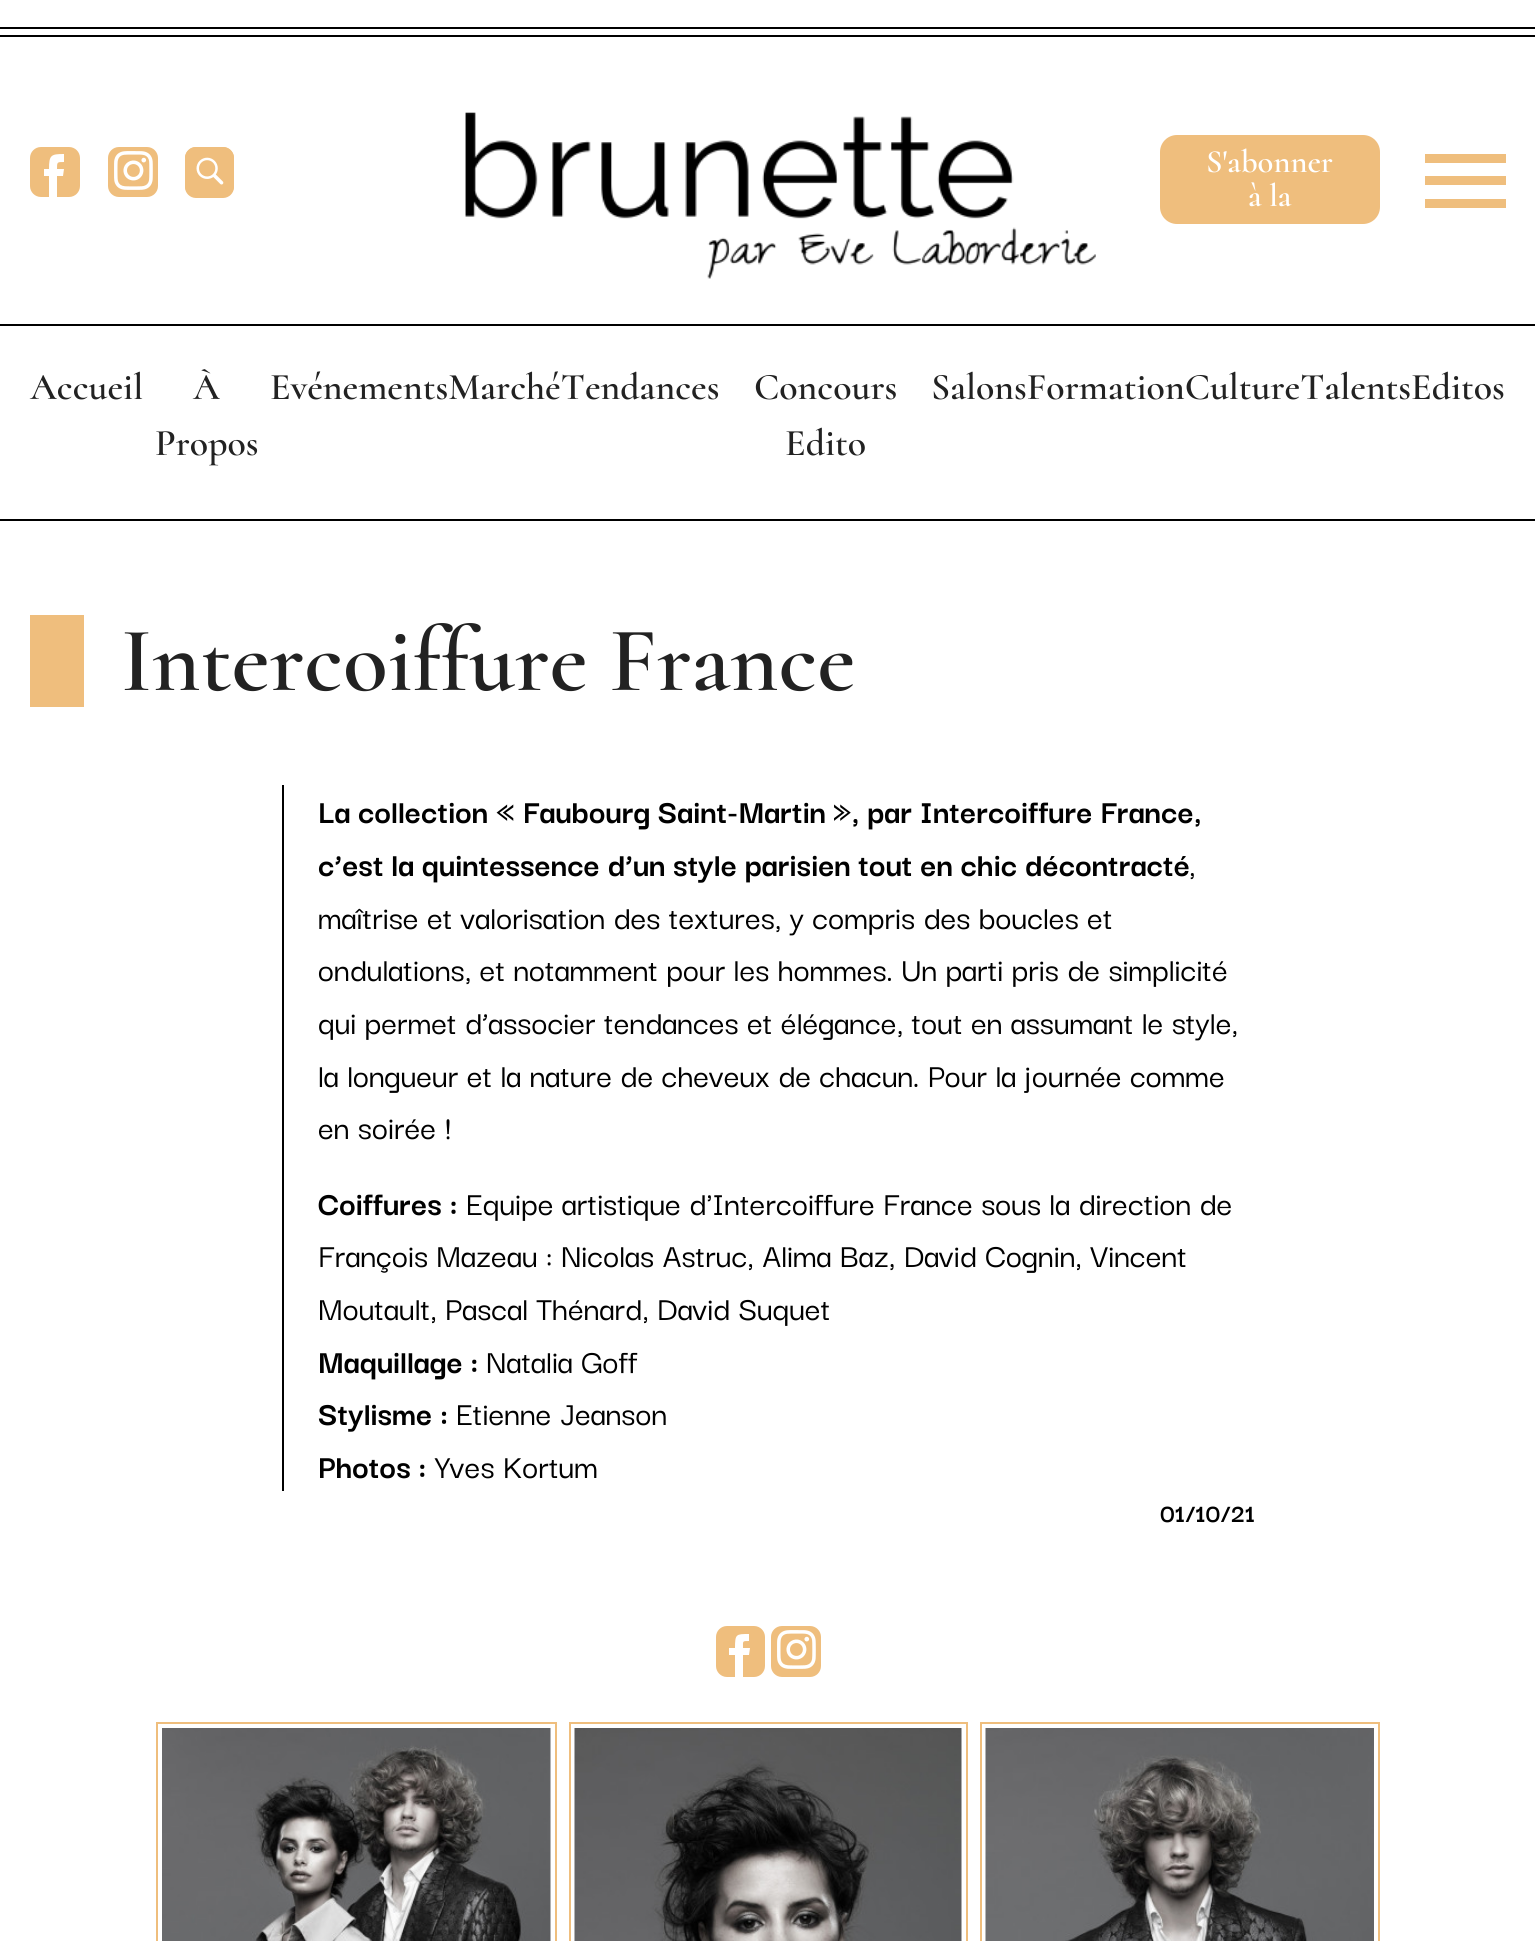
import math
import cairo


def round_path(ctx, x, y, w, h, r):
	ctx.new_sub_path()
	for i, (u, v) in enumerate([(x + w - r, y + h - r), (x + r, y + h - r), (x + r, y + r), (x + w - r, y + r)]):
		ctx.arc(u, v, r, i * math.pi / 2, (i + 1) * math.pi / 2)
	ctx.close_path()

def paste(ctx, path, x, y, w, h):
	ctx.save()
	ctx.set_source_surface(cairo.ImageSurface.create_from_png(path), x, y)
	ctx.rectangle(x, y, w, h)
	ctx.fill()
	ctx.restore()

def draw(ctx):
	ctx.set_source_rgb(1, 1, 1)
	ctx.paint()
	ctx.set_source_rgb(0, 0, 0)
	ctx.rectangle(0, 27, 1535, 2)
	ctx.rectangle(0, 519, 1535, 2)
	ctx.rectangle(0, 35, 1535, 2)
	ctx.fill()
	ctx.set_source_rgb(0.937, 0.745, 0.49)
	round_path(ctx, 30, 147, 50, 50, 11)
	ctx.fill()
	ctx.set_source_rgb(1, 1, 1)
	ctx.new_path()
	ctx.move_to(57, 197)
	ctx.line_to(49, 197)
	ctx.line_to(49, 176)
	ctx.line_to(44, 176)
	ctx.line_to(44, 169)
	ctx.line_to(49, 169)
	ctx.curve_to(49, 155, 51, 154, 64, 154)
	ctx.line_to(64, 162)
	ctx.curve_to(57, 162, 57, 162, 57, 169)
	ctx.line_to(64, 169)
	ctx.line_to(63, 176)
	ctx.line_to(57, 176)
	ctx.close_path()
	ctx.fill()
	ctx.set_source_rgb(0.937, 0.745, 0.49)
	round_path(ctx, 108, 147, 50, 50, 11)
	ctx.fill()
	paste(ctx, 'media/1.png', 114, 151, 39, 39)
	round_path(ctx, 186, 148, 47, 49, 14)
	ctx.stroke()
	round_path(ctx, 185, 147, 49, 51, 11)
	ctx.fill()
	round_path(ctx, 185, 147, 49, 50, 11)
	ctx.fill()
	paste(ctx, 'media/2.png', 196, 157, 28, 28)
	paste(ctx, 'media/3.png', 465, 112, 631, 167)
	round_path(ctx, 1160, 135, 220, 89, 17)
	ctx.fill()
	ctx.select_font_face('Cormorant SemiBold')
	ctx.set_font_size(32.5)
	ctx.set_source_rgb(1, 1, 1)
	ctx.move_to(1206, 172)
	ctx.show_text('S\'abonner')
	ctx.move_to(1248, 206)
	ctx.show_text('à la')
	ctx.set_source_rgb(0.937, 0.745, 0.49)
	ctx.new_path()
	ctx.move_to(1425, 154)
	ctx.line_to(1506, 154)
	ctx.line_to(1506, 163)
	ctx.line_to(1425, 163)
	ctx.close_path()
	ctx.move_to(1425, 185)
	ctx.line_to(1425, 176)
	ctx.line_to(1506, 176)
	ctx.line_to(1506, 185)
	ctx.close_path()
	ctx.move_to(1425, 208)
	ctx.line_to(1425, 199)
	ctx.line_to(1506, 199)
	ctx.line_to(1506, 208)
	ctx.close_path()
	ctx.fill()
	ctx.set_source_rgb(0, 0, 0)
	ctx.rectangle(0, 324, 1535, 2)
	ctx.fill()
	ctx.set_font_size(37.75)
	ctx.set_source_rgb(0.133, 0.133, 0.133)
	for x, y, s in [
		(30, 399, 'Accueil'),
		(193, 399, 'À'),
		(155, 455, 'Propos'),
		(270, 399, 'EvénementsMarchéTendances'),
		(754, 399, 'Concours'),
		(785, 455, 'Edito'),
		(931, 399, 'SalonsFormationCultureTalentsEditos'),
	]:
		ctx.move_to(x, y)
		ctx.show_text(s)
	ctx.set_source_rgb(0.937, 0.745, 0.49)
	ctx.rectangle(30, 615, 54, 92)
	ctx.fill()
	ctx.set_font_size(92.25)
	ctx.set_source_rgb(0.133, 0.133, 0.133)
	ctx.move_to(121, 690)
	ctx.show_text('Intercoiffure France')
	ctx.set_source_rgb(0, 0, 0)
	ctx.rectangle(282, 785, 2, 706)
	ctx.fill()
	ctx.select_font_face('Darker Grotesque', cairo.FONT_SLANT_NORMAL, cairo.FONT_WEIGHT_BOLD)
	ctx.set_font_size(35.1)
	ctx.move_to(318, 823)
	ctx.show_text('La collection « Faubourg Saint-Martin », par Intercoiffure France,')
	ctx.move_to(318, 876)
	ctx.show_text('c’est la quintessence d’un style parisien tout en chic décontracté')
	ctx.select_font_face('Darker Grotesque Medium')
	for x, y, s in [
		(1189, 876, ','),
		(318, 929, 'maîtrise et valorisation des textures, y compris des boucles et'),
		(318, 981, 'ondulations, et notamment pour les hommes. Un parti pris de simplicité'),
		(318, 1034, 'qui permet d’associer tendances et élégance, tout en assumant le style,'),
		(318, 1087, 'la longueur et la nature de cheveux de chacun. Pour la journée comme'),
		(318, 1139, 'en soirée !'),
	]:
		ctx.move_to(x, y)
		ctx.show_text(s)
	ctx.select_font_face('Darker Grotesque', cairo.FONT_SLANT_NORMAL, cairo.FONT_WEIGHT_BOLD)
	ctx.move_to(318, 1215)
	ctx.show_text('Coiffures :')
	ctx.select_font_face('Darker Grotesque Medium')
	for x, y, s in [
		(466, 1215, 'Equipe artistique d\'Intercoiffure France sous la direction de'),
		(318, 1267, 'François Mazeau : Nicolas Astruc, Alima Baz, David Cognin, Vincent'),
		(318, 1320, 'Moutault, Pascal Thénard, David Suquet'),
	]:
		ctx.move_to(x, y)
		ctx.show_text(s)
	ctx.select_font_face('Darker Grotesque', cairo.FONT_SLANT_NORMAL, cairo.FONT_WEIGHT_BOLD)
	ctx.move_to(318, 1373)
	ctx.show_text('Maquillage :')
	ctx.select_font_face('Darker Grotesque Medium')
	ctx.move_to(486, 1373)
	ctx.show_text('Natalia Goff')
	ctx.select_font_face('Darker Grotesque', cairo.FONT_SLANT_NORMAL, cairo.FONT_WEIGHT_BOLD)
	ctx.move_to(318, 1425)
	ctx.show_text('Stylisme :')
	ctx.select_font_face('Darker Grotesque Medium')
	ctx.move_to(456, 1425)
	ctx.show_text('Etienne Jeanson')
	ctx.select_font_face('Darker Grotesque', cairo.FONT_SLANT_NORMAL, cairo.FONT_WEIGHT_BOLD)
	ctx.move_to(318, 1478)
	ctx.show_text('Photos :')
	ctx.select_font_face('Darker Grotesque Medium')
	ctx.move_to(435, 1478)
	ctx.show_text('Yves Kortum')
	ctx.select_font_face('Darker Grotesque', cairo.FONT_SLANT_NORMAL, cairo.FONT_WEIGHT_BOLD)
	ctx.set_font_size(27)
	ctx.move_to(1160, 1522)
	ctx.show_text('01/10/21')
	ctx.set_source_rgb(0.937, 0.745, 0.49)
	round_path(ctx, 716, 1626, 49, 51, 11)
	ctx.fill()
	ctx.set_source_rgb(1, 1, 1)
	ctx.new_path()
	ctx.move_to(743, 1677)
	ctx.line_to(735, 1677)
	ctx.line_to(735, 1655)
	ctx.line_to(729, 1655)
	ctx.line_to(729, 1648)
	ctx.line_to(735, 1648)
	ctx.curve_to(735, 1634, 736, 1634, 749, 1634)
	ctx.line_to(749, 1641)
	ctx.curve_to(742, 1641, 743, 1641, 743, 1648)
	ctx.line_to(750, 1648)
	ctx.line_to(749, 1655)
	ctx.line_to(743, 1655)
	ctx.close_path()
	ctx.fill()
	ctx.set_source_rgb(0.937, 0.745, 0.49)
	round_path(ctx, 771, 1626, 50, 51, 11)
	ctx.fill()
	paste(ctx, 'media/1.png', 777, 1630, 39, 39)
	ctx.rectangle(157, 1723, 399, 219)
	ctx.stroke()
	paste(ctx, 'media/4.png', 162, 1728, 389, 213)
	ctx.rectangle(570, 1723, 397, 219)
	ctx.stroke()
	paste(ctx, 'media/5.png', 574, 1728, 388, 213)
	ctx.rectangle(981, 1723, 398, 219)
	ctx.stroke()
	paste(ctx, 'media/6.png', 985, 1728, 389, 213)


surface = cairo.ImageSurface(cairo.FORMAT_RGB24, 1535, 1941)
ctx = cairo.Context(surface)
options = cairo.FontOptions()
options.set_hint_metrics(cairo.HINT_METRICS_OFF)
options.set_hint_style(cairo.HINT_STYLE_NONE)
ctx.set_font_options(options)
ctx.set_miter_limit(4)
draw(ctx)
surface.write_to_png('image.png')
